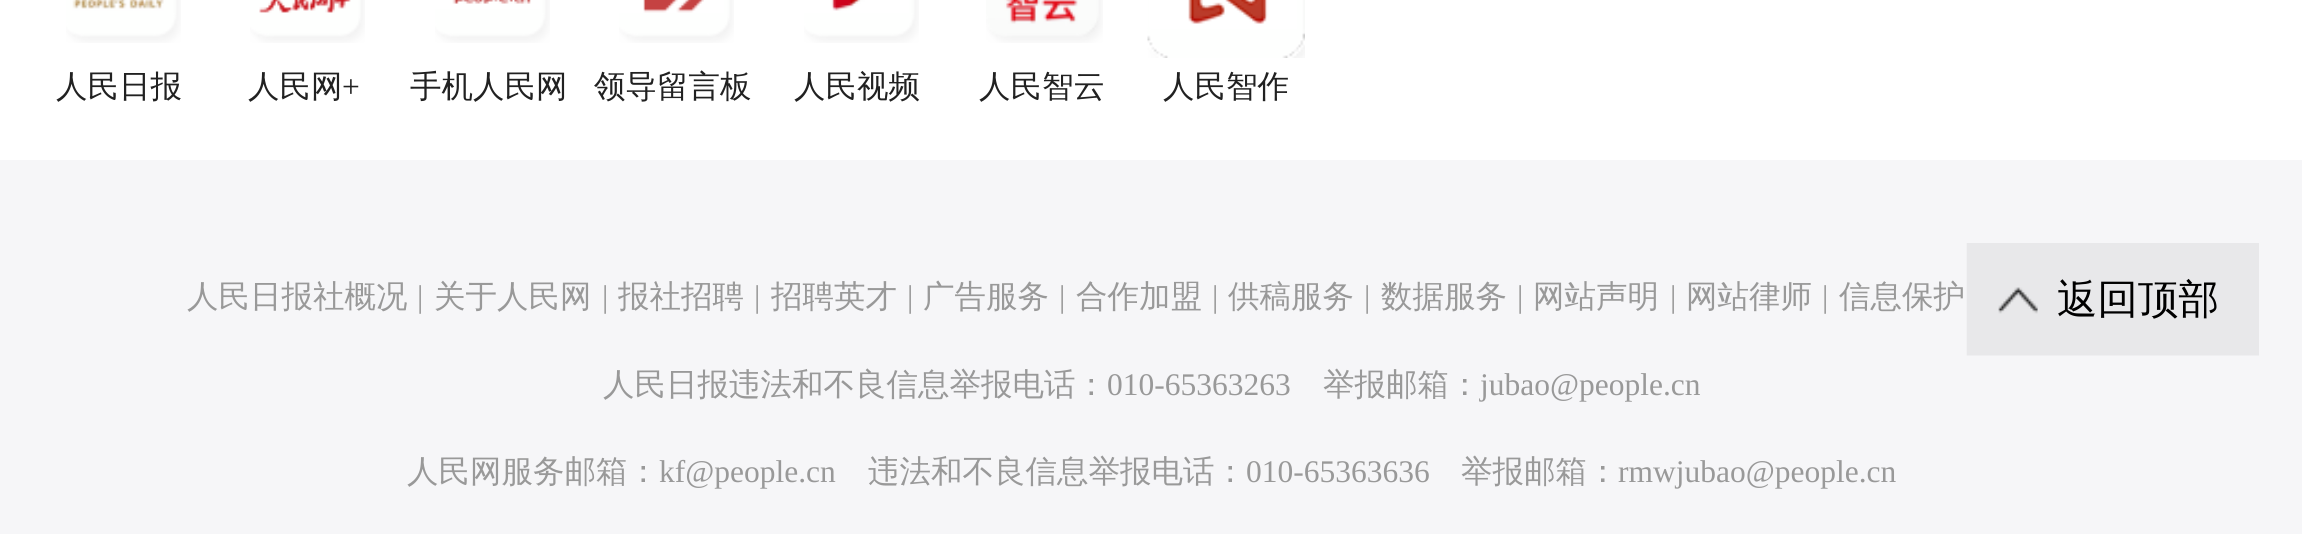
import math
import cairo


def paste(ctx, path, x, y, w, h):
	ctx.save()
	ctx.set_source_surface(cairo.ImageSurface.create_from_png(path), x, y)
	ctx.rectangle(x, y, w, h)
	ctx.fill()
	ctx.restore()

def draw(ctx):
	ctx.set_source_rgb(1, 1, 1)
	ctx.paint()
	paste(ctx, 'media/1.png', 66, 0, 115, 43)
	ctx.select_font_face('WenQuanYi Zen Hei Medium')
	ctx.set_font_size(31.5)
	ctx.set_source_rgb(0.129, 0.129, 0.129)
	ctx.move_to(56, 97)
	ctx.show_text('人民日报')
	paste(ctx, 'media/2.png', 250, 0, 115, 43)
	ctx.move_to(248, 97)
	ctx.show_text('人民网')
	ctx.select_font_face('Liberation Serif')
	ctx.move_to(342, 97)
	ctx.show_text('+')
	paste(ctx, 'media/3.png', 435, 0, 115, 43)
	ctx.select_font_face('WenQuanYi Zen Hei Medium')
	ctx.move_to(410, 97)
	ctx.show_text('手机人民网')
	paste(ctx, 'media/4.png', 619, 0, 115, 43)
	ctx.move_to(594, 97)
	ctx.show_text('领导留言板')
	paste(ctx, 'media/5.png', 804, 0, 115, 43)
	ctx.move_to(794, 97)
	ctx.show_text('人民视频')
	paste(ctx, 'media/6.png', 986, 0, 117, 43)
	ctx.move_to(979, 97)
	ctx.show_text('人民智云')
	paste(ctx, 'media/7.png', 1147, 0, 158, 58)
	ctx.move_to(1163, 97)
	ctx.show_text('人民智作')
	ctx.set_source_rgb(0.961, 0.961, 0.969)
	ctx.rectangle(0, 160, 2302, 374)
	ctx.fill()
	ctx.set_source_rgb(0.6, 0.6, 0.6)
	ctx.move_to(187, 307)
	ctx.show_text('人民日报社概况')
	ctx.select_font_face('Liberation Serif')
	ctx.move_to(417, 307)
	ctx.show_text('|')
	ctx.select_font_face('WenQuanYi Zen Hei Medium')
	ctx.move_to(434, 307)
	ctx.show_text('关于人民网')
	ctx.select_font_face('Liberation Serif')
	ctx.move_to(602, 307)
	ctx.show_text('|')
	ctx.select_font_face('WenQuanYi Zen Hei Medium')
	ctx.move_to(618, 307)
	ctx.show_text('报社招聘')
	ctx.select_font_face('Liberation Serif')
	ctx.move_to(754, 307)
	ctx.show_text('|')
	ctx.select_font_face('WenQuanYi Zen Hei Medium')
	ctx.move_to(771, 307)
	ctx.show_text('招聘英才')
	ctx.select_font_face('Liberation Serif')
	ctx.move_to(907, 307)
	ctx.show_text('|')
	ctx.select_font_face('WenQuanYi Zen Hei Medium')
	ctx.move_to(923, 307)
	ctx.show_text('广告服务')
	ctx.select_font_face('Liberation Serif')
	ctx.move_to(1059, 307)
	ctx.show_text('|')
	ctx.select_font_face('WenQuanYi Zen Hei Medium')
	ctx.move_to(1076, 307)
	ctx.show_text('合作加盟')
	ctx.select_font_face('Liberation Serif')
	ctx.move_to(1212, 307)
	ctx.show_text('|')
	ctx.select_font_face('WenQuanYi Zen Hei Medium')
	ctx.move_to(1228, 307)
	ctx.show_text('供稿服务')
	ctx.select_font_face('Liberation Serif')
	ctx.move_to(1364, 307)
	ctx.show_text('|')
	ctx.select_font_face('WenQuanYi Zen Hei Medium')
	ctx.move_to(1381, 307)
	ctx.show_text('数据服务')
	ctx.select_font_face('Liberation Serif')
	ctx.move_to(1517, 307)
	ctx.show_text('|')
	ctx.select_font_face('WenQuanYi Zen Hei Medium')
	ctx.move_to(1533, 307)
	ctx.show_text('网站声明')
	ctx.select_font_face('Liberation Serif')
	ctx.move_to(1670, 307)
	ctx.show_text('|')
	ctx.select_font_face('WenQuanYi Zen Hei Medium')
	ctx.move_to(1686, 307)
	ctx.show_text('网站律师')
	ctx.select_font_face('Liberation Serif')
	ctx.move_to(1822, 307)
	ctx.show_text('|')
	ctx.select_font_face('WenQuanYi Zen Hei Medium')
	ctx.move_to(1839, 307)
	ctx.show_text('信息保护')
	ctx.move_to(603, 395)
	ctx.show_text('人民日报违法和不良信息举报电话：')
	ctx.select_font_face('Liberation Serif')
	ctx.move_to(1107, 395)
	ctx.show_text('010-65363263')
	ctx.select_font_face('WenQuanYi Zen Hei Medium')
	ctx.move_to(1323, 395)
	ctx.show_text('举报邮箱：')
	ctx.select_font_face('Liberation Serif')
	ctx.move_to(1480, 395)
	ctx.show_text('jubao@people.cn')
	ctx.select_font_face('WenQuanYi Zen Hei Medium')
	ctx.move_to(407, 482)
	ctx.show_text('人民网服务邮箱：')
	ctx.select_font_face('Liberation Serif')
	ctx.move_to(659, 482)
	ctx.show_text('kf@people.cn')
	ctx.select_font_face('WenQuanYi Zen Hei Medium')
	ctx.move_to(868, 482)
	ctx.show_text('违法和不良信息举报电话：')
	ctx.select_font_face('Liberation Serif')
	ctx.move_to(1246, 482)
	ctx.show_text('010-65363636')
	ctx.select_font_face('WenQuanYi Zen Hei Medium')
	ctx.move_to(1461, 482)
	ctx.show_text('举报邮箱：')
	ctx.select_font_face('Liberation Serif')
	ctx.move_to(1618, 482)
	ctx.show_text('rmwjubao@people.cn')
	paste(ctx, 'media/8.png', 1966, 243, 293, 113)
	ctx.select_font_face('WenQuanYi Zen Hei Medium')
	ctx.set_font_size(40.5)
	ctx.set_source_rgb(0, 0, 0)
	ctx.move_to(2057, 313)
	ctx.show_text('返回顶部')


surface = cairo.ImageSurface(cairo.FORMAT_RGB24, 2302, 534)
ctx = cairo.Context(surface)
options = cairo.FontOptions()
options.set_hint_metrics(cairo.HINT_METRICS_OFF)
options.set_hint_style(cairo.HINT_STYLE_NONE)
ctx.set_font_options(options)
ctx.set_miter_limit(4)
draw(ctx)
surface.write_to_png('image.png')
